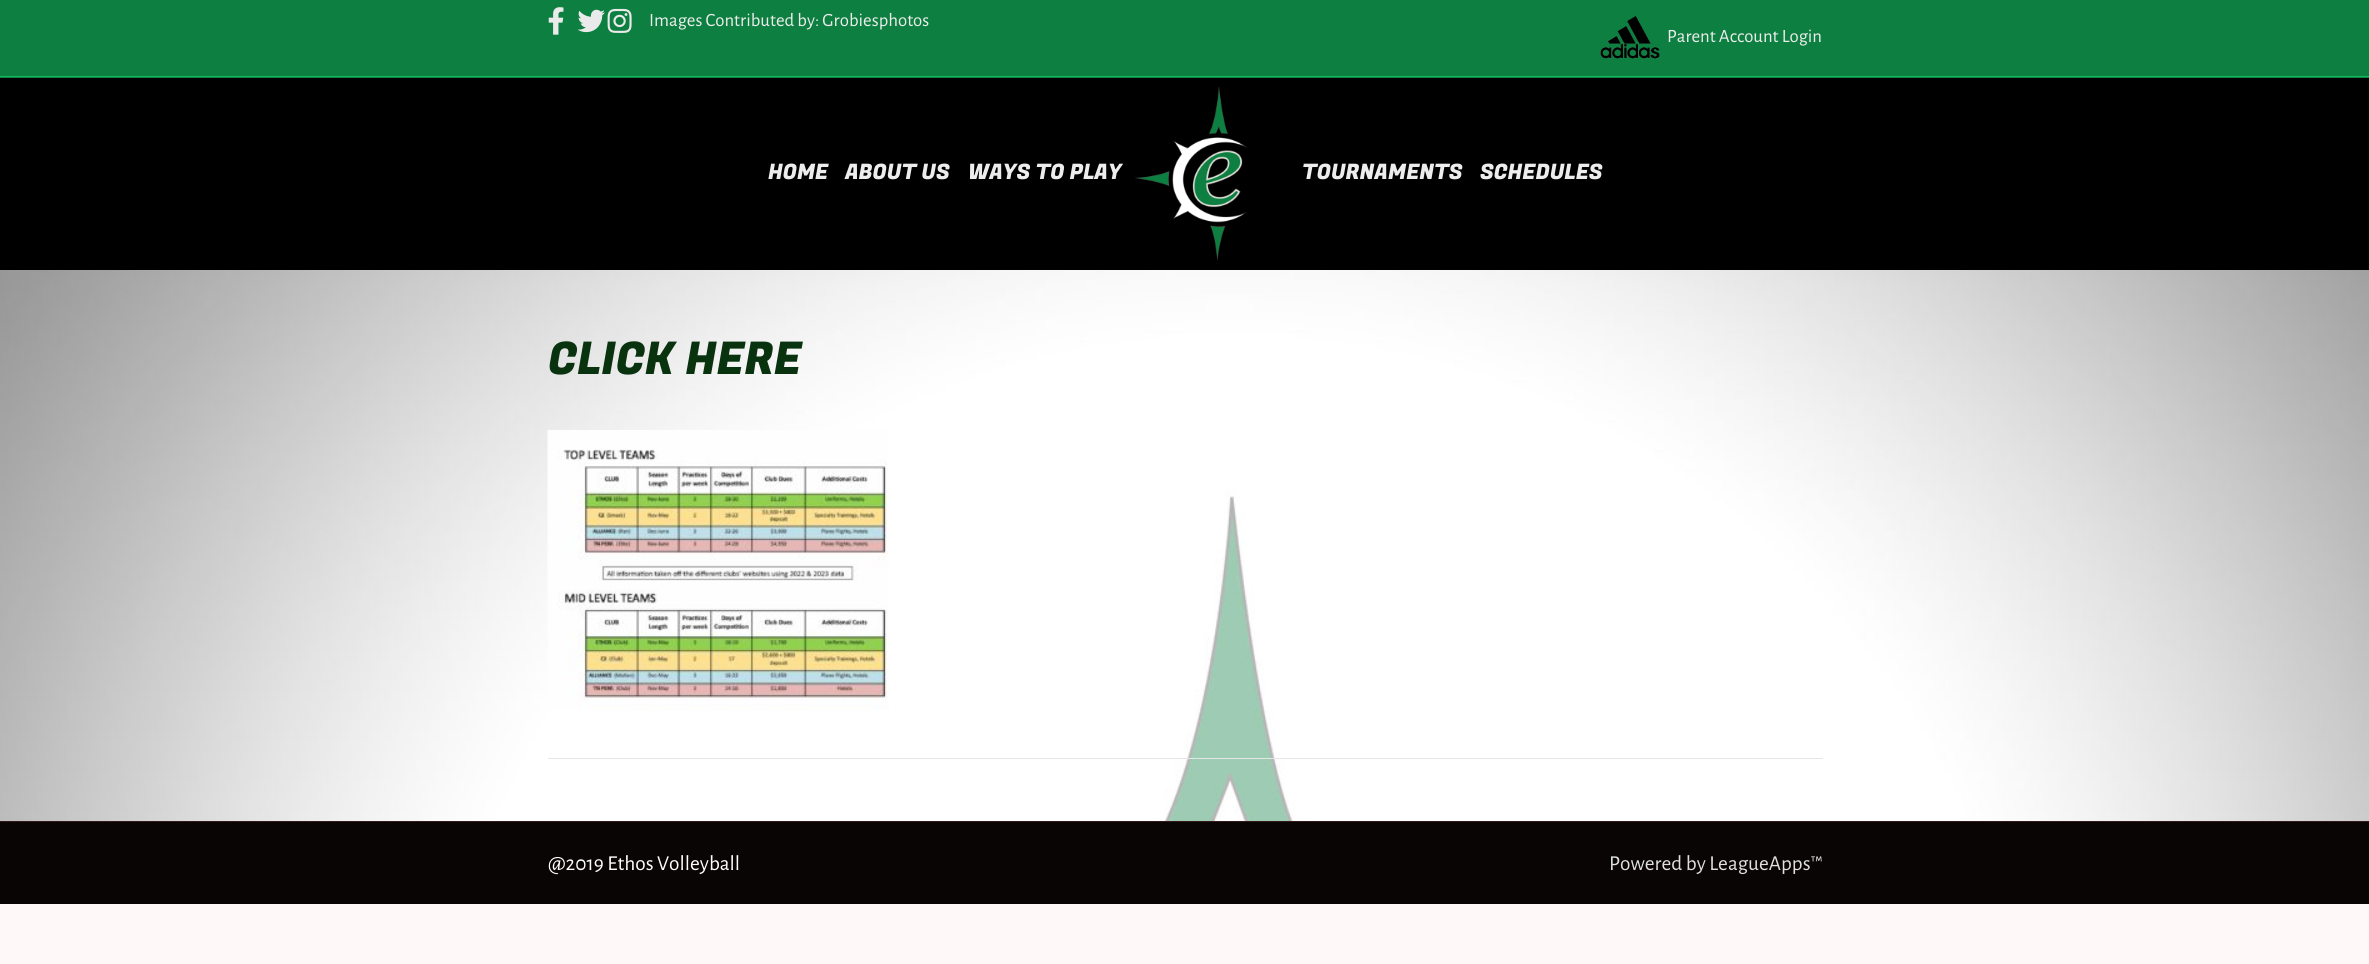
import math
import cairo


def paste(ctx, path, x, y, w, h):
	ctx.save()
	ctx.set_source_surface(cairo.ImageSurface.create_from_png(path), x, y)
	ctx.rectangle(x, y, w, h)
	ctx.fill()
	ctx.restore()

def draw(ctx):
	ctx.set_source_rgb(1, 0.969, 0.969)
	ctx.paint()
	ctx.set_source_rgb(0.051, 0.498, 0.251)
	ctx.rectangle(0, 0, 2369, 78)
	ctx.fill()
	ctx.set_source_rgb(0.075, 0.733, 0.369)
	ctx.rectangle(0, 76, 2369, 1)
	ctx.fill()
	paste(ctx, 'media/1.png', 548, 7, 16, 28)
	paste(ctx, 'media/2.png', 577, 9, 28, 24)
	paste(ctx, 'media/3.png', 607, 8, 25, 25)
	ctx.select_font_face('Alegreya Sans')
	ctx.set_font_size(18.75)
	ctx.set_source_rgb(0.929, 0.929, 0.929)
	ctx.move_to(649, 26)
	ctx.show_text('Images Contributed by: Grobiesphotos')
	paste(ctx, 'media/4.png', 1600, 16, 60, 43)
	ctx.move_to(1667, 42)
	ctx.show_text('Parent Account Login')
	ctx.set_source_rgb(0, 0, 0)
	ctx.rectangle(0, 78, 2369, 192)
	ctx.fill()
	ctx.select_font_face('Fugaz One')
	ctx.set_font_size(21.25)
	ctx.set_source_rgb(0.929, 0.929, 0.929)
	for x, y, s in [
		(768, 179, 'HOME'),
		(845, 179, 'ABOUT US'),
		(968, 179, 'WAYS TO PLAY'),
	]:
		ctx.move_to(x, y)
		ctx.show_text(s)
	paste(ctx, 'media/5.png', 1135, 86, 112, 175)
	ctx.move_to(1302, 179)
	ctx.show_text('TOURNAMENTS')
	ctx.move_to(1480, 179)
	ctx.show_text('SCHEDULES')
	paste(ctx, 'media/6.png', 0, 270, 2369, 551)
	ctx.set_font_size(45)
	ctx.set_source_rgb(0.035, 0.2, 0.055)
	ctx.move_to(548, 374)
	ctx.show_text('CLICK HERE')
	paste(ctx, 'media/7.png', 547, 430, 342, 280)
	ctx.set_source_rgb(0.902, 0.902, 0.902)
	ctx.rectangle(548, 758, 1275, 1)
	ctx.fill()
	ctx.set_source_rgb(0.039, 0.02, 0.02)
	ctx.rectangle(0, 822, 2369, 82)
	ctx.fill()
	ctx.set_source_rgb(0.212, 0.106, 0.106)
	ctx.rectangle(0, 821, 2369, 1)
	ctx.fill()
	ctx.select_font_face('Alegreya Sans')
	ctx.set_font_size(21.25)
	ctx.set_source_rgb(1, 1, 1)
	ctx.move_to(548, 870)
	ctx.show_text('@2019 Ethos Volleyball')
	ctx.set_source_rgb(0.878, 0.878, 0.878)
	ctx.move_to(1609, 870)
	ctx.show_text('Powered by LeagueApps™')


surface = cairo.ImageSurface(cairo.FORMAT_RGB24, 2369, 964)
ctx = cairo.Context(surface)
options = cairo.FontOptions()
options.set_hint_metrics(cairo.HINT_METRICS_OFF)
options.set_hint_style(cairo.HINT_STYLE_NONE)
ctx.set_font_options(options)
ctx.set_miter_limit(4)
draw(ctx)
surface.write_to_png('image.png')
